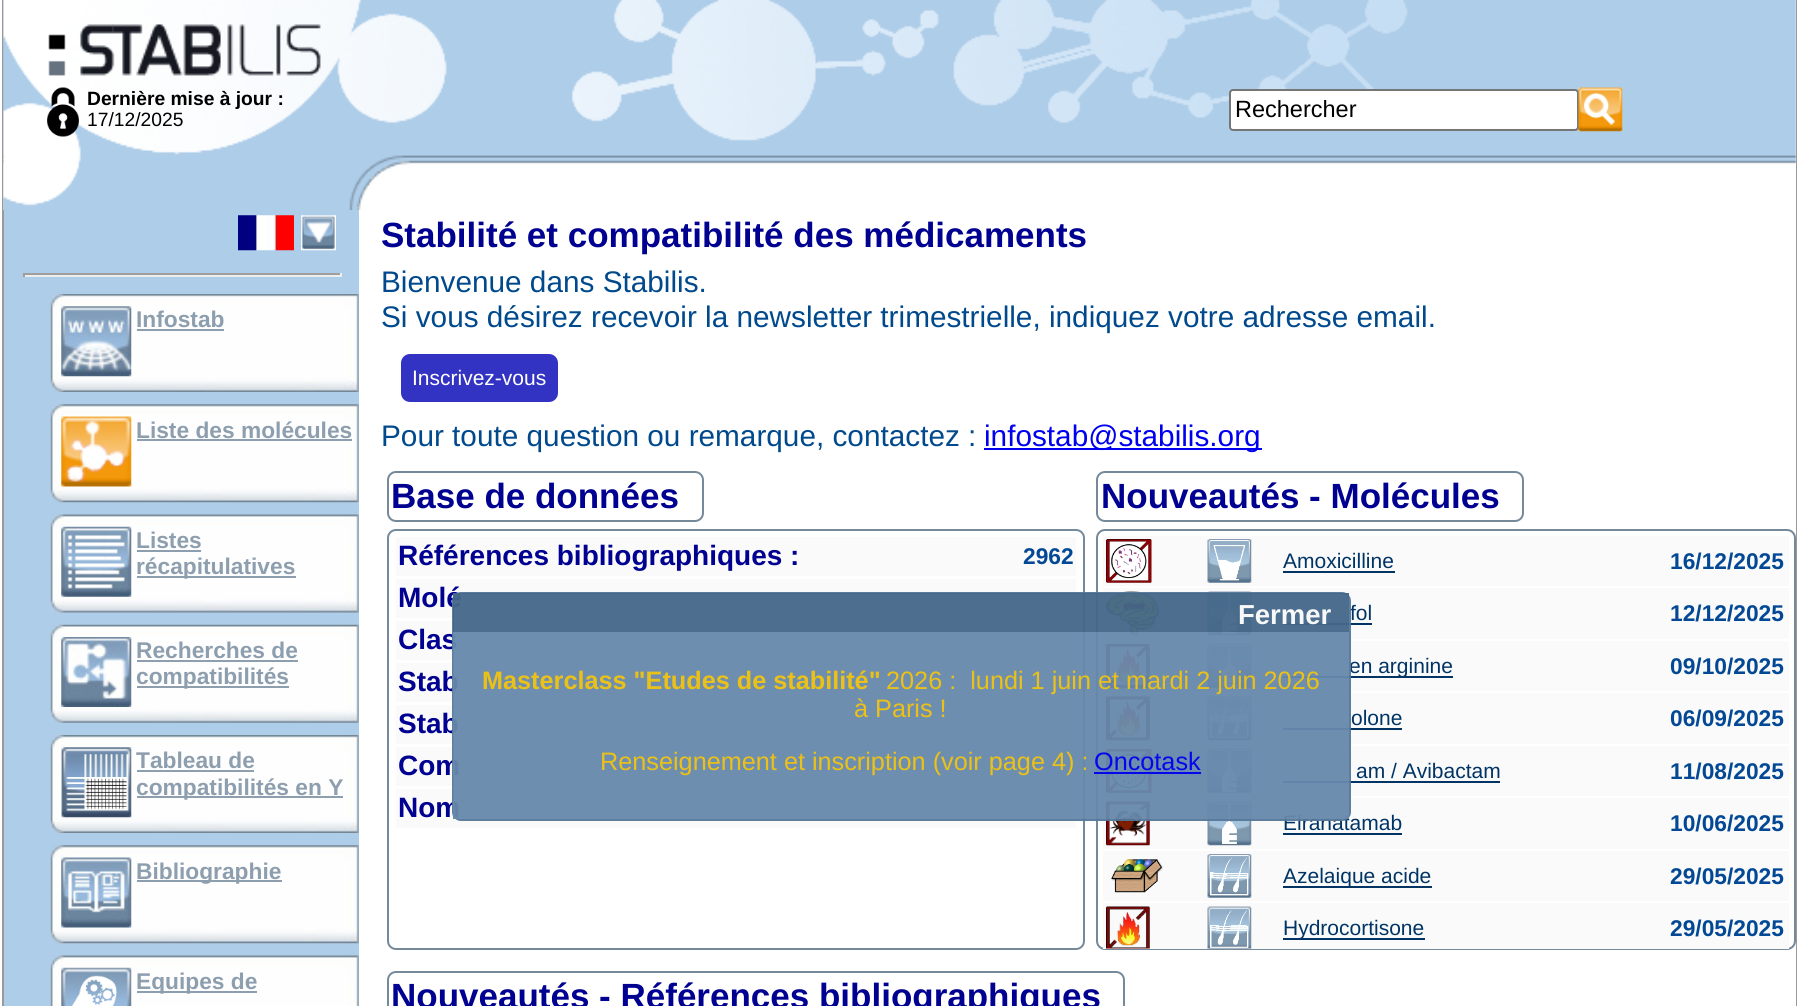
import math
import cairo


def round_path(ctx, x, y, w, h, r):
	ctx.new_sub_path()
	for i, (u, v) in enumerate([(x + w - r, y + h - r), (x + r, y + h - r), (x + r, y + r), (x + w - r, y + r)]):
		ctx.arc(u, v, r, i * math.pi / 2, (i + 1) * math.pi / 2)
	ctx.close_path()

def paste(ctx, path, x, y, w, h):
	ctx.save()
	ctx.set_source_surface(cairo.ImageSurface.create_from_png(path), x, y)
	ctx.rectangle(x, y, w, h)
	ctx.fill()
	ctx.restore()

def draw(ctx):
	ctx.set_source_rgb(1, 1, 1)
	ctx.paint()
	ctx.set_source_rgb(0.6, 0.6, 0.6)
	ctx.rectangle(1796, 0, 1, 1006)
	ctx.fill()
	ctx.rectangle(2, 0, 2, 1006)
	ctx.fill()
	paste(ctx, 'media/1.png', 3, 0, 1793, 210)
	paste(ctx, 'media/2.png', 3, 0, 1793, 210)
	paste(ctx, 'media/3.png', 47, 87, 32, 50)
	ctx.select_font_face('Liberation Sans', cairo.FONT_SLANT_NORMAL, cairo.FONT_WEIGHT_BOLD)
	ctx.set_font_size(19.25)
	ctx.set_source_rgb(0, 0, 0)
	ctx.move_to(87, 105)
	ctx.show_text('Dernière mise à jour :')
	ctx.select_font_face('Liberation Sans')
	ctx.move_to(87, 126)
	ctx.show_text('17/12/2025')
	ctx.set_source_rgb(1, 1, 1)
	round_path(ctx, 1230, 90, 348, 40, 3)
	ctx.fill_preserve()
	ctx.set_source_rgb(0.463, 0.463, 0.463)
	ctx.stroke()
	ctx.set_font_size(23.5)
	ctx.set_source_rgb(0, 0, 0)
	ctx.move_to(1235, 117)
	ctx.show_text('Rechercher')
	paste(ctx, 'media/4.png', 1578, 87, 45, 45)
	ctx.set_source_rgb(0.682, 0.804, 0.914)
	ctx.rectangle(4, 210, 355, 796)
	ctx.fill()
	paste(ctx, 'media/5.png', 238, 215, 56, 36)
	paste(ctx, 'media/6.png', 301, 215, 35, 36)
	ctx.set_source_rgb(0.624, 0.624, 0.624)
	ctx.rectangle(23, 273, 318, 2)
	ctx.fill()
	ctx.set_source_rgb(0.933, 0.933, 0.933)
	ctx.rectangle(340, 273, 2, 4)
	ctx.rectangle(23, 275, 318, 2)
	ctx.fill()
	ctx.set_source_rgb(0.624, 0.624, 0.624)
	ctx.rectangle(23, 273, 2, 4)
	ctx.fill()
	paste(ctx, 'media/7.png', 50, 294, 309, 98)
	paste(ctx, 'media/8.png', 61, 306, 71, 71)
	ctx.select_font_face('Liberation Sans', cairo.FONT_SLANT_NORMAL, cairo.FONT_WEIGHT_BOLD)
	ctx.set_font_size(22.75)
	ctx.set_source_rgb(0.553, 0.62, 0.682)
	ctx.move_to(136, 327)
	ctx.show_text('Infostab')
	ctx.rectangle(137, 329, 87, 2)
	ctx.fill()
	paste(ctx, 'media/9.png', 50, 404, 309, 99)
	paste(ctx, 'media/10.png', 61, 416, 71, 71)
	ctx.move_to(136, 438)
	ctx.show_text('Liste des molécules')
	ctx.rectangle(137, 439, 215, 2)
	ctx.fill()
	paste(ctx, 'media/11.png', 50, 514, 309, 99)
	paste(ctx, 'media/12.png', 61, 526, 71, 71)
	ctx.move_to(136, 548)
	ctx.show_text('Listes')
	ctx.rectangle(137, 550, 64, 2)
	ctx.fill()
	ctx.rectangle(137, 576, 159, 2)
	ctx.fill()
	ctx.move_to(136, 574)
	ctx.show_text('récapitulatives')
	paste(ctx, 'media/13.png', 50, 624, 309, 99)
	paste(ctx, 'media/14.png', 61, 637, 71, 70)
	ctx.move_to(136, 658)
	ctx.show_text('Recherches de')
	ctx.rectangle(137, 660, 161, 2)
	ctx.fill()
	ctx.rectangle(137, 686, 152, 2)
	ctx.fill()
	ctx.move_to(136, 684)
	ctx.show_text('compatibilités')
	paste(ctx, 'media/7.png', 50, 735, 309, 98)
	paste(ctx, 'media/15.png', 61, 747, 71, 71)
	ctx.move_to(136, 768)
	ctx.show_text('Tableau de')
	ctx.rectangle(137, 770, 117, 2)
	ctx.fill()
	ctx.rectangle(137, 796, 206, 2)
	ctx.fill()
	ctx.move_to(136, 795)
	ctx.show_text('compatibilités en Y')
	paste(ctx, 'media/9.png', 50, 845, 309, 99)
	paste(ctx, 'media/16.png', 61, 857, 71, 71)
	ctx.rectangle(137, 880, 145, 2)
	ctx.fill()
	ctx.move_to(136, 879)
	ctx.show_text('Bibliographie')
	paste(ctx, 'media/17.png', 50, 955, 309, 51)
	paste(ctx, 'media/18.png', 61, 967, 71, 39)
	ctx.rectangle(137, 991, 120, 2)
	ctx.fill()
	ctx.move_to(136, 989)
	ctx.show_text('Equipes de')
	ctx.set_font_size(35)
	ctx.set_source_rgb(0, 0, 0.569)
	ctx.move_to(381, 247)
	ctx.show_text('Stabilité et compatibilité des médicaments')
	ctx.select_font_face('Liberation Sans')
	ctx.set_font_size(29.75)
	ctx.set_source_rgb(0, 0.286, 0.549)
	ctx.move_to(381, 292)
	ctx.show_text('Bienvenue dans Stabilis.')
	ctx.move_to(381, 327)
	ctx.show_text('Si vous désirez recevoir la newsletter trimestrielle, indiquez votre adresse email.')
	ctx.set_source_rgb(0.2, 0.2, 0.765)
	round_path(ctx, 400, 353, 159, 50, 10)
	ctx.fill_preserve()
	ctx.set_source_rgb(1, 1, 1)
	ctx.stroke()
	ctx.set_font_size(21)
	ctx.move_to(412, 385)
	ctx.show_text('Inscrivez-vous')
	ctx.set_font_size(29.75)
	ctx.set_source_rgb(0, 0.286, 0.549)
	ctx.move_to(381, 446)
	ctx.show_text('Pour toute question ou remarque, contactez :')
	ctx.set_source_rgb(0, 0, 0.933)
	ctx.rectangle(984, 448, 278, 2)
	ctx.fill()
	ctx.move_to(984, 446)
	ctx.show_text('infostab@stabilis.org')
	round_path(ctx, 388, 472, 315, 49, 8)
	ctx.set_source_rgb(0.455, 0.537, 0.604)
	ctx.stroke()
	ctx.select_font_face('Liberation Sans', cairo.FONT_SLANT_NORMAL, cairo.FONT_WEIGHT_BOLD)
	ctx.set_font_size(35)
	ctx.set_source_rgb(0, 0, 0.569)
	ctx.move_to(391, 508)
	ctx.show_text('Base de données')
	round_path(ctx, 388, 530, 696, 419, 8)
	ctx.set_source_rgb(0.455, 0.537, 0.604)
	ctx.stroke()
	ctx.set_source_rgb(0.98, 0.98, 0.98)
	ctx.rectangle(396, 537, 680, 39)
	ctx.fill()
	ctx.set_font_size(28)
	ctx.set_source_rgb(0, 0, 0.569)
	ctx.move_to(398, 565)
	ctx.show_text('Références bibliographiques :')
	ctx.set_font_size(22.75)
	ctx.set_source_rgb(0.012, 0.282, 0.58)
	ctx.move_to(1023, 564)
	ctx.show_text('2962')
	ctx.set_source_rgb(0.98, 0.98, 0.98)
	ctx.rectangle(396, 579, 680, 39)
	ctx.fill()
	ctx.set_font_size(28)
	ctx.set_source_rgb(0, 0, 0.569)
	ctx.move_to(398, 607)
	ctx.show_text('Molé')
	ctx.set_source_rgb(0.98, 0.98, 0.98)
	ctx.rectangle(396, 621, 680, 39)
	ctx.fill()
	ctx.set_source_rgb(0, 0, 0.569)
	ctx.move_to(398, 649)
	ctx.show_text('Clas')
	ctx.set_source_rgb(0.98, 0.98, 0.98)
	ctx.rectangle(396, 663, 680, 39)
	ctx.fill()
	ctx.set_source_rgb(0, 0, 0.569)
	ctx.move_to(398, 691)
	ctx.show_text('Stab')
	ctx.set_source_rgb(0.98, 0.98, 0.98)
	ctx.rectangle(396, 705, 680, 39)
	ctx.fill()
	ctx.set_source_rgb(0, 0, 0.569)
	ctx.move_to(398, 733)
	ctx.show_text('Stab')
	ctx.set_source_rgb(0.98, 0.98, 0.98)
	ctx.rectangle(396, 747, 680, 39)
	ctx.fill()
	ctx.set_source_rgb(0, 0, 0.569)
	ctx.move_to(398, 775)
	ctx.show_text('Com')
	ctx.set_source_rgb(0.98, 0.98, 0.98)
	ctx.rectangle(396, 789, 680, 39)
	ctx.fill()
	ctx.set_source_rgb(0, 0, 0.569)
	ctx.move_to(398, 817)
	ctx.show_text('Nom')
	round_path(ctx, 1097, 472, 426, 49, 8)
	ctx.set_source_rgb(0.455, 0.537, 0.604)
	ctx.stroke()
	ctx.set_font_size(35)
	ctx.set_source_rgb(0, 0, 0.569)
	ctx.move_to(1101, 508)
	ctx.show_text('Nouveautés - Molécules')
	round_path(ctx, 1097, 530, 698, 419, 8)
	ctx.set_source_rgb(0.455, 0.537, 0.604)
	ctx.stroke()
	ctx.set_source_rgb(0.98, 0.98, 0.98)
	ctx.rectangle(1103, 536, 686, 50)
	ctx.fill()
	paste(ctx, 'media/19.png', 1106, 539, 46, 44)
	paste(ctx, 'media/20.png', 1207, 539, 45, 44)
	ctx.select_font_face('Liberation Sans')
	ctx.set_font_size(21)
	ctx.set_source_rgb(0, 0.204, 0.396)
	ctx.move_to(1283, 568)
	ctx.show_text('Amoxicilline')
	ctx.rectangle(1283, 571, 112, 2)
	ctx.fill()
	ctx.select_font_face('Liberation Sans', cairo.FONT_SLANT_NORMAL, cairo.FONT_WEIGHT_BOLD)
	ctx.set_font_size(22.75)
	ctx.set_source_rgb(0.012, 0.282, 0.58)
	ctx.move_to(1670, 569)
	ctx.show_text('16/12/2025')
	ctx.set_source_rgb(0.98, 0.98, 0.98)
	ctx.rectangle(1103, 588, 686, 51)
	ctx.fill()
	paste(ctx, 'media/21.png', 1106, 591, 53, 45)
	paste(ctx, 'media/22.png', 1207, 591, 45, 45)
	ctx.select_font_face('Liberation Sans')
	ctx.set_font_size(21)
	ctx.set_source_rgb(0, 0.204, 0.396)
	ctx.move_to(1350, 620)
	ctx.show_text('fol')
	ctx.rectangle(1283, 623, 89, 2)
	ctx.fill()
	ctx.select_font_face('Liberation Sans', cairo.FONT_SLANT_NORMAL, cairo.FONT_WEIGHT_BOLD)
	ctx.set_font_size(22.75)
	ctx.set_source_rgb(0.012, 0.282, 0.58)
	ctx.move_to(1670, 621)
	ctx.show_text('12/12/2025')
	ctx.set_source_rgb(0.98, 0.98, 0.98)
	ctx.rectangle(1103, 641, 686, 50)
	ctx.fill()
	paste(ctx, 'media/23.png', 1106, 644, 44, 44)
	paste(ctx, 'media/24.png', 1207, 644, 45, 44)
	ctx.set_source_rgb(0, 0.204, 0.396)
	ctx.rectangle(1283, 676, 170, 2)
	ctx.fill()
	ctx.select_font_face('Liberation Sans')
	ctx.set_font_size(21)
	ctx.move_to(1349, 673)
	ctx.show_text('en arginine')
	ctx.select_font_face('Liberation Sans', cairo.FONT_SLANT_NORMAL, cairo.FONT_WEIGHT_BOLD)
	ctx.set_font_size(22.75)
	ctx.set_source_rgb(0.012, 0.282, 0.58)
	ctx.move_to(1670, 674)
	ctx.show_text('09/10/2025')
	ctx.set_source_rgb(0.98, 0.98, 0.98)
	ctx.rectangle(1103, 693, 686, 51)
	ctx.fill()
	paste(ctx, 'media/25.png', 1106, 696, 44, 45)
	paste(ctx, 'media/26.png', 1207, 696, 45, 45)
	ctx.select_font_face('Liberation Sans')
	ctx.set_font_size(21)
	ctx.set_source_rgb(0, 0.204, 0.396)
	ctx.move_to(1351, 725)
	ctx.show_text('olone')
	ctx.rectangle(1283, 728, 119, 2)
	ctx.fill()
	ctx.select_font_face('Liberation Sans', cairo.FONT_SLANT_NORMAL, cairo.FONT_WEIGHT_BOLD)
	ctx.set_font_size(22.75)
	ctx.set_source_rgb(0.012, 0.282, 0.58)
	ctx.move_to(1670, 726)
	ctx.show_text('06/09/2025')
	ctx.set_source_rgb(0.98, 0.98, 0.98)
	ctx.rectangle(1103, 746, 686, 50)
	ctx.fill()
	paste(ctx, 'media/27.png', 1106, 749, 46, 44)
	paste(ctx, 'media/24.png', 1207, 749, 45, 44)
	ctx.select_font_face('Liberation Sans')
	ctx.set_font_size(21)
	ctx.set_source_rgb(0, 0.204, 0.396)
	ctx.move_to(1356, 778)
	ctx.show_text('am / Avibactam')
	ctx.rectangle(1283, 781, 217, 2)
	ctx.fill()
	ctx.select_font_face('Liberation Sans', cairo.FONT_SLANT_NORMAL, cairo.FONT_WEIGHT_BOLD)
	ctx.set_font_size(22.75)
	ctx.set_source_rgb(0.012, 0.282, 0.58)
	ctx.move_to(1670, 779)
	ctx.show_text('11/08/2025')
	ctx.set_source_rgb(0.98, 0.98, 0.98)
	ctx.rectangle(1103, 798, 686, 51)
	ctx.fill()
	paste(ctx, 'media/28.png', 1106, 801, 44, 45)
	paste(ctx, 'media/22.png', 1207, 801, 45, 45)
	ctx.select_font_face('Liberation Sans')
	ctx.set_font_size(21)
	ctx.set_source_rgb(0, 0.204, 0.396)
	ctx.move_to(1283, 830)
	ctx.show_text('Elranatamab')
	ctx.rectangle(1283, 833, 119, 2)
	ctx.fill()
	ctx.select_font_face('Liberation Sans', cairo.FONT_SLANT_NORMAL, cairo.FONT_WEIGHT_BOLD)
	ctx.set_font_size(22.75)
	ctx.set_source_rgb(0.012, 0.282, 0.58)
	ctx.move_to(1670, 831)
	ctx.show_text('10/06/2025')
	ctx.set_source_rgb(0.98, 0.98, 0.98)
	ctx.rectangle(1103, 851, 686, 50)
	ctx.fill()
	paste(ctx, 'media/29.png', 1111, 859, 52, 34)
	paste(ctx, 'media/30.png', 1207, 854, 45, 44)
	ctx.set_source_rgb(0, 0.204, 0.396)
	ctx.rectangle(1283, 886, 149, 2)
	ctx.fill()
	ctx.select_font_face('Liberation Sans')
	ctx.set_font_size(21)
	ctx.move_to(1283, 883)
	ctx.show_text('Azelaique acide')
	ctx.select_font_face('Liberation Sans', cairo.FONT_SLANT_NORMAL, cairo.FONT_WEIGHT_BOLD)
	ctx.set_font_size(22.75)
	ctx.set_source_rgb(0.012, 0.282, 0.58)
	ctx.move_to(1670, 884)
	ctx.show_text('29/05/2025')
	ctx.set_source_rgb(0.98, 0.98, 0.98)
	ctx.rectangle(1103, 903, 686, 46)
	ctx.fill()
	paste(ctx, 'media/31.png', 1106, 906, 44, 43)
	paste(ctx, 'media/32.png', 1207, 906, 45, 43)
	ctx.set_source_rgb(0, 0.204, 0.396)
	ctx.rectangle(1283, 938, 142, 2)
	ctx.fill()
	ctx.select_font_face('Liberation Sans')
	ctx.set_font_size(21)
	ctx.move_to(1283, 935)
	ctx.show_text('Hydrocortisone')
	ctx.select_font_face('Liberation Sans', cairo.FONT_SLANT_NORMAL, cairo.FONT_WEIGHT_BOLD)
	ctx.set_font_size(22.75)
	ctx.set_source_rgb(0.012, 0.282, 0.58)
	ctx.move_to(1670, 936)
	ctx.show_text('29/05/2025')
	round_path(ctx, 388, 972, 736, 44, 8)
	ctx.set_source_rgb(0.455, 0.537, 0.604)
	ctx.stroke()
	ctx.set_font_size(35)
	ctx.set_source_rgb(0, 0, 0.569)
	ctx.move_to(391, 1008)
	ctx.show_text('Nouveautés - Références bibliographiques')
	round_path(ctx, 453, 593, 897, 227, 8)
	ctx.set_source_rgba(0.337, 0.471, 0.604, 0.95)
	ctx.stroke()
	ctx.set_source_rgba(0.271, 0.404, 0.537, 0.95)
	ctx.rectangle(453, 593, 896, 39)
	ctx.fill()
	ctx.set_font_size(27.5)
	ctx.set_source_rgb(0.965, 0.973, 0.976)
	ctx.move_to(1238, 624)
	ctx.show_text('Fermer')
	ctx.set_source_rgba(0.404, 0.537, 0.671, 0.95)
	ctx.rectangle(453, 632, 896, 187)
	ctx.fill()
	ctx.set_font_size(25.25)
	ctx.set_source_rgb(0.918, 0.757, 0.09)
	ctx.move_to(482, 689)
	ctx.show_text('Masterclass "Etudes de stabilité"')
	ctx.select_font_face('Liberation Sans')
	for x, y, s in [
		(886, 689, '2026 :  lundi 1 juin et mardi 2 juin 2026'),
		(854, 717, 'à Paris !'),
		(600, 770, 'Renseignement et inscription (voir page 4) :'),
	]:
		ctx.move_to(x, y)
		ctx.show_text(s)
	ctx.set_source_rgb(0.02, 0.027, 0.922)
	ctx.move_to(1094, 770)
	ctx.show_text('Oncotask')
	ctx.set_source_rgba(0, 0, 0.933, 0.95)
	ctx.rectangle(1094, 772, 107, 2)
	ctx.fill()


surface = cairo.ImageSurface(cairo.FORMAT_RGB24, 1797, 1006)
ctx = cairo.Context(surface)
options = cairo.FontOptions()
options.set_hint_metrics(cairo.HINT_METRICS_OFF)
options.set_hint_style(cairo.HINT_STYLE_NONE)
ctx.set_font_options(options)
ctx.set_miter_limit(4)
draw(ctx)
surface.write_to_png('image.png')
